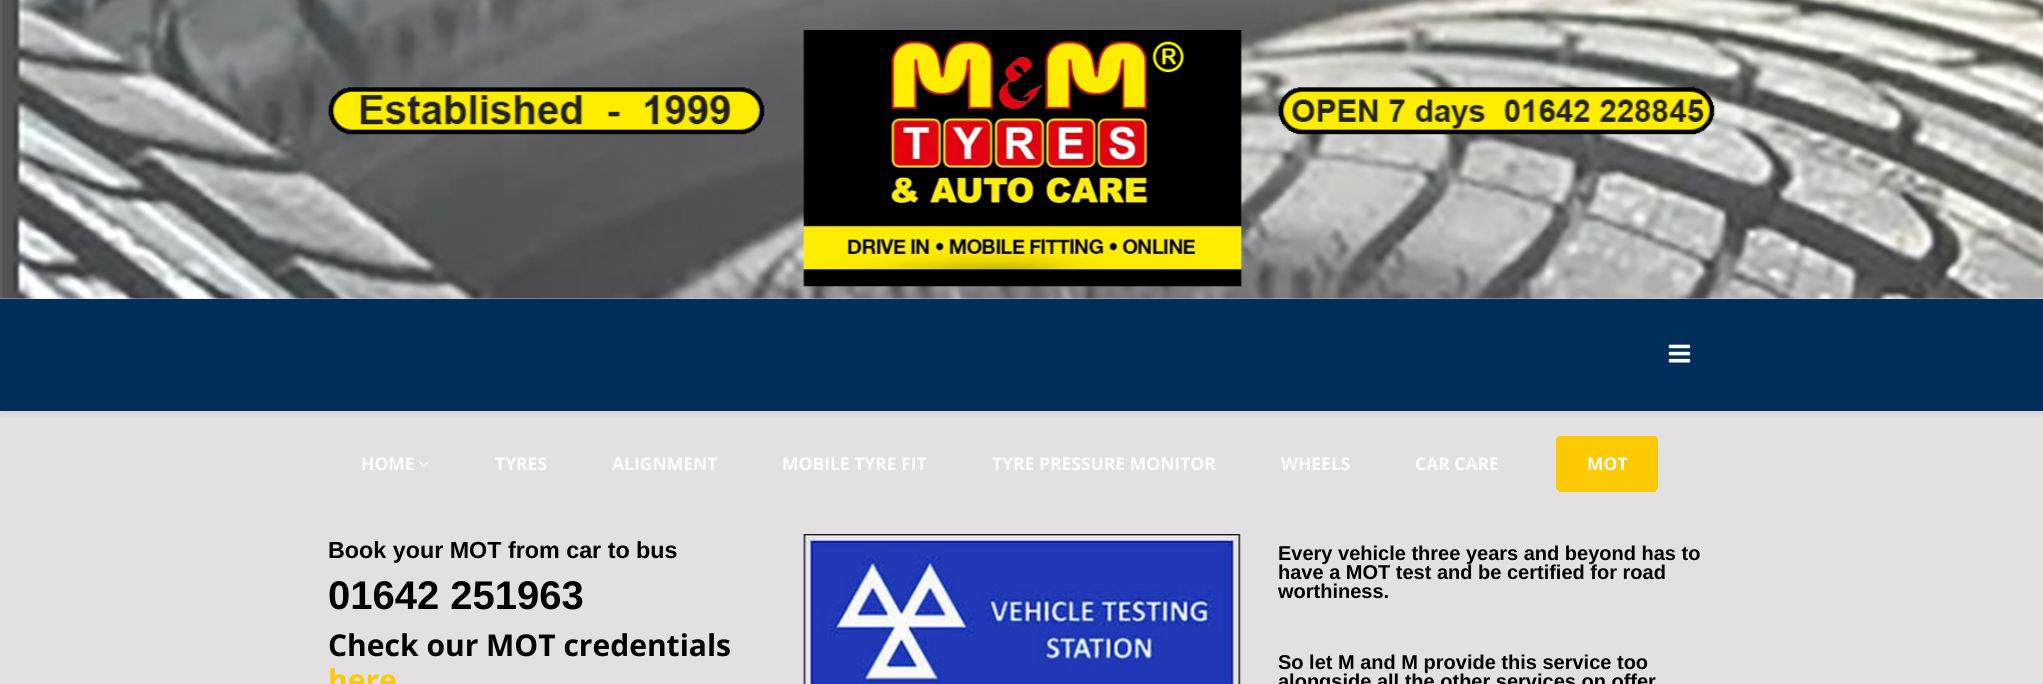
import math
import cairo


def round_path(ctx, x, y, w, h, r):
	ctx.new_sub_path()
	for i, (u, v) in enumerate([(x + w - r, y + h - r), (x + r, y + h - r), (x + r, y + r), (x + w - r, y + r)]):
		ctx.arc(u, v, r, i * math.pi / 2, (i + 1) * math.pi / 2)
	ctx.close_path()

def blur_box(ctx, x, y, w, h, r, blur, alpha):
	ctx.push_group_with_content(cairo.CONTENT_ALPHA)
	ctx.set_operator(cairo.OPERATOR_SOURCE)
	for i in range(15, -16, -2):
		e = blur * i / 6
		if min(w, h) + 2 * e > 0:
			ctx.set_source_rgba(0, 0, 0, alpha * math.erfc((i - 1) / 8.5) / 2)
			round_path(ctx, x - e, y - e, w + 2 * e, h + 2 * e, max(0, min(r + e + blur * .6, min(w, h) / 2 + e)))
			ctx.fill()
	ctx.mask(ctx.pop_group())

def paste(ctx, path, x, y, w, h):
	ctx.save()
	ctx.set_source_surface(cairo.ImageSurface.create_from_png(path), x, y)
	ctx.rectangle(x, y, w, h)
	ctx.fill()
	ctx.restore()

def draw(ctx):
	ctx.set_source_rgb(0.886, 0.878, 0.882)
	ctx.paint()
	ctx.set_source_rgb(0.933, 0.933, 0.933)
	ctx.rectangle(0, 0, 2043, 299)
	ctx.fill()
	paste(ctx, 'media/1.png', 0, 0, 2043, 299)
	paste(ctx, 'media/2.png', 328, 87, 437, 48)
	paste(ctx, 'media/3.png', 803, 30, 439, 257)
	paste(ctx, 'media/4.png', 1278, 87, 437, 48)
	ctx.set_source_rgb(0, 0, 0)
	blur_box(ctx, 0, 303, 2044, 112, 0, 2, 0.05)
	ctx.set_source_rgb(0, 0.18, 0.357)
	ctx.rectangle(0, 299, 2043, 112)
	ctx.fill()
	paste(ctx, 'media/5.png', 1668, 344, 23, 19)
	ctx.select_font_face('Open Sans', cairo.FONT_SLANT_NORMAL, cairo.FONT_WEIGHT_BOLD)
	ctx.set_font_size(17.5)
	ctx.set_source_rgb(1, 1, 1)
	ctx.move_to(361, 470)
	ctx.show_text('HOME')
	paste(ctx, 'media/6.png', 419, 461, 10, 6)
	for x, y, s in [
		(495, 470, 'TYRES'),
		(612, 470, 'ALIGNMENT'),
		(782, 470, 'MOBILE TYRE FIT'),
		(992, 470, 'TYRE PRESSURE MONITOR'),
		(1281, 470, 'WHEELS'),
		(1415, 470, 'CAR CARE'),
	]:
		ctx.move_to(x, y)
		ctx.show_text(s)
	ctx.set_source_rgb(0.992, 0.788, 0)
	round_path(ctx, 1556, 436, 102, 55, 4)
	ctx.fill()
	ctx.rectangle(1559, 436, 97, 1)
	ctx.fill()
	ctx.rectangle(1559, 490, 97, 2)
	ctx.fill()
	ctx.set_source_rgb(1, 1, 1)
	ctx.move_to(1587, 470)
	ctx.show_text('MOT')
	ctx.select_font_face('Liberation Sans', cairo.FONT_SLANT_NORMAL, cairo.FONT_WEIGHT_BOLD)
	ctx.set_font_size(23.3)
	ctx.set_source_rgb(0, 0, 0)
	ctx.move_to(328, 558)
	ctx.show_text('Book your MOT from car to bus')
	ctx.set_font_size(40)
	ctx.move_to(328, 609)
	ctx.show_text('01642 251963')
	ctx.select_font_face('Open Sans', cairo.FONT_SLANT_NORMAL, cairo.FONT_WEIGHT_BOLD)
	ctx.set_font_size(30)
	ctx.move_to(328, 656)
	ctx.show_text('Check our MOT credentials')
	ctx.set_source_rgb(0.992, 0.788, 0)
	ctx.move_to(328, 691)
	ctx.show_text('here')
	paste(ctx, 'media/7.png', 803, 534, 438, 150)
	ctx.select_font_face('Liberation Sans', cairo.FONT_SLANT_NORMAL, cairo.FONT_WEIGHT_BOLD)
	ctx.set_font_size(20)
	ctx.set_source_rgb(0, 0, 0)
	for x, y, s in [
		(1278, 560, 'Every vehicle three years and beyond has to'),
		(1278, 579, 'have a MOT test and be certified for road'),
		(1278, 598, 'worthiness.'),
		(1278, 669, 'So let M and M provide this service too'),
		(1278, 688, 'alongside all the other services on offer'),
	]:
		ctx.move_to(x, y)
		ctx.show_text(s)


surface = cairo.ImageSurface(cairo.FORMAT_RGB24, 2043, 684)
ctx = cairo.Context(surface)
options = cairo.FontOptions()
options.set_hint_metrics(cairo.HINT_METRICS_OFF)
options.set_hint_style(cairo.HINT_STYLE_NONE)
ctx.set_font_options(options)
ctx.set_miter_limit(4)
draw(ctx)
surface.write_to_png('image.png')
